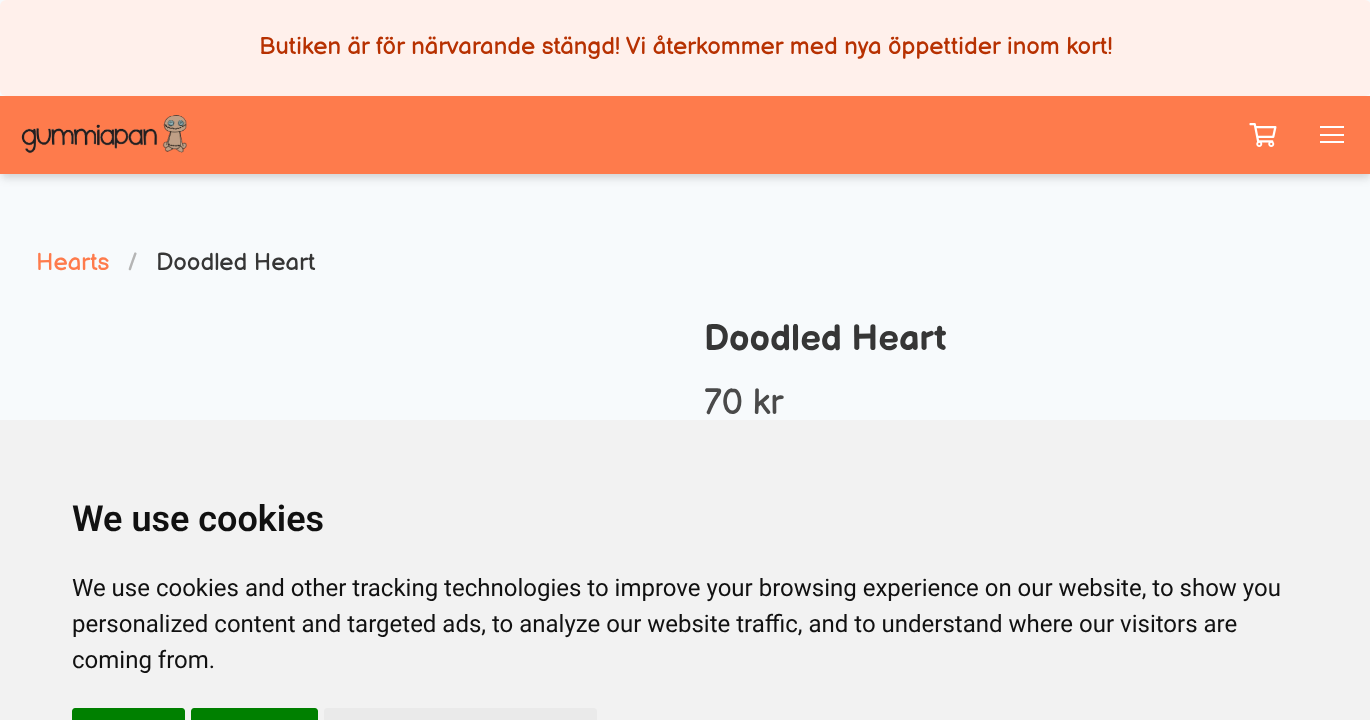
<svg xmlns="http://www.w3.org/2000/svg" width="1370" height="720">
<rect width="100%" height="100%" fill="#f7fafc"/>
<rect width="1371" height="96" rx="6" fill="#fff0eb"/>
<text x="259" y="54" style="font-family:Balsamiq Sans;font-size:24px;fill:#b73101">Butiken är för närvarande stängd! Vi återkommer med nya öppettider inom kort!</text>
<rect x="2" y="101" width="1368" height="75" fill="#0000000f" filter="blur(3px)"/>
<rect x="2" y="104" width="1368" height="75" fill="#0000001a" filter="blur(4.5px)"/>
<rect y="96" width="1370" height="78" fill="#fe7b4c"/>
<image x="21" y="115" width="166" height="39" href="media/1.png"/>
<image x="1249" y="123" width="28" height="24" href="media/2.png"/>
<rect x="1320" y="126" width="24" height="2" fill="#fff"/>
<rect x="1320" y="134" width="24" height="2" fill="#fff"/>
<rect x="1320" y="141" width="24" height="2" fill="#fff"/>
<text x="36" y="270" style="font-family:Balsamiq Sans;font-size:24px;fill:#fe7b4c">Hearts</text>
<text x="127" y="270" style="font-family:Balsamiq Sans;font-size:24px;fill:#b5b5b5">/</text>
<text x="156" y="270" style="font-family:Balsamiq Sans;font-size:24px;fill:#363636">Doodled Heart</text>
<text x="704" y="350" style="font-family:Balsamiq Sans;font-size:36px;font-weight:bold;fill:#363636">Doodled Heart</text>
<text x="704" y="414" style="font-family:Balsamiq Sans;font-size:36px;fill:#4a4a4a">70 kr</text>
<rect y="420" width="1370" height="300" fill="#f2f2f2"/>
<text x="72" y="531" style="font-family:Roboto;font-size:36px;font-weight:600;fill:#111">We use cookies</text>
<text x="72" y="596" style="font-family:Roboto;font-size:24px;fill:#111">We use cookies and other tracking technologies to improve your browsing experience on our website, to show you</text>
<text x="72" y="632" style="font-family:Roboto;font-size:24px;fill:#111">personalized content and targeted ads, to analyze our website traffic, and to understand where our visitors are</text>
<text x="72" y="668" style="font-family:Roboto;font-size:24px;fill:#111">coming from.</text>
<path d="M75 708h107c1.5 0 3 1.5 3 3v9h-113v-9c0-1.5 1.5-3 3-3z" fill="#008000"/>
<path d="M194 708h121c1.5 0 3 1.5 3 3v9h-127v-9c0-1.5 1.5-3 3-3z" fill="#008000"/>
<path d="M327 708h267c1.5 0 3 1.5 3 3v9h-273v-9c0-1.5 1.5-3 3-3z" fill="#eaeaea"/>
</svg>
